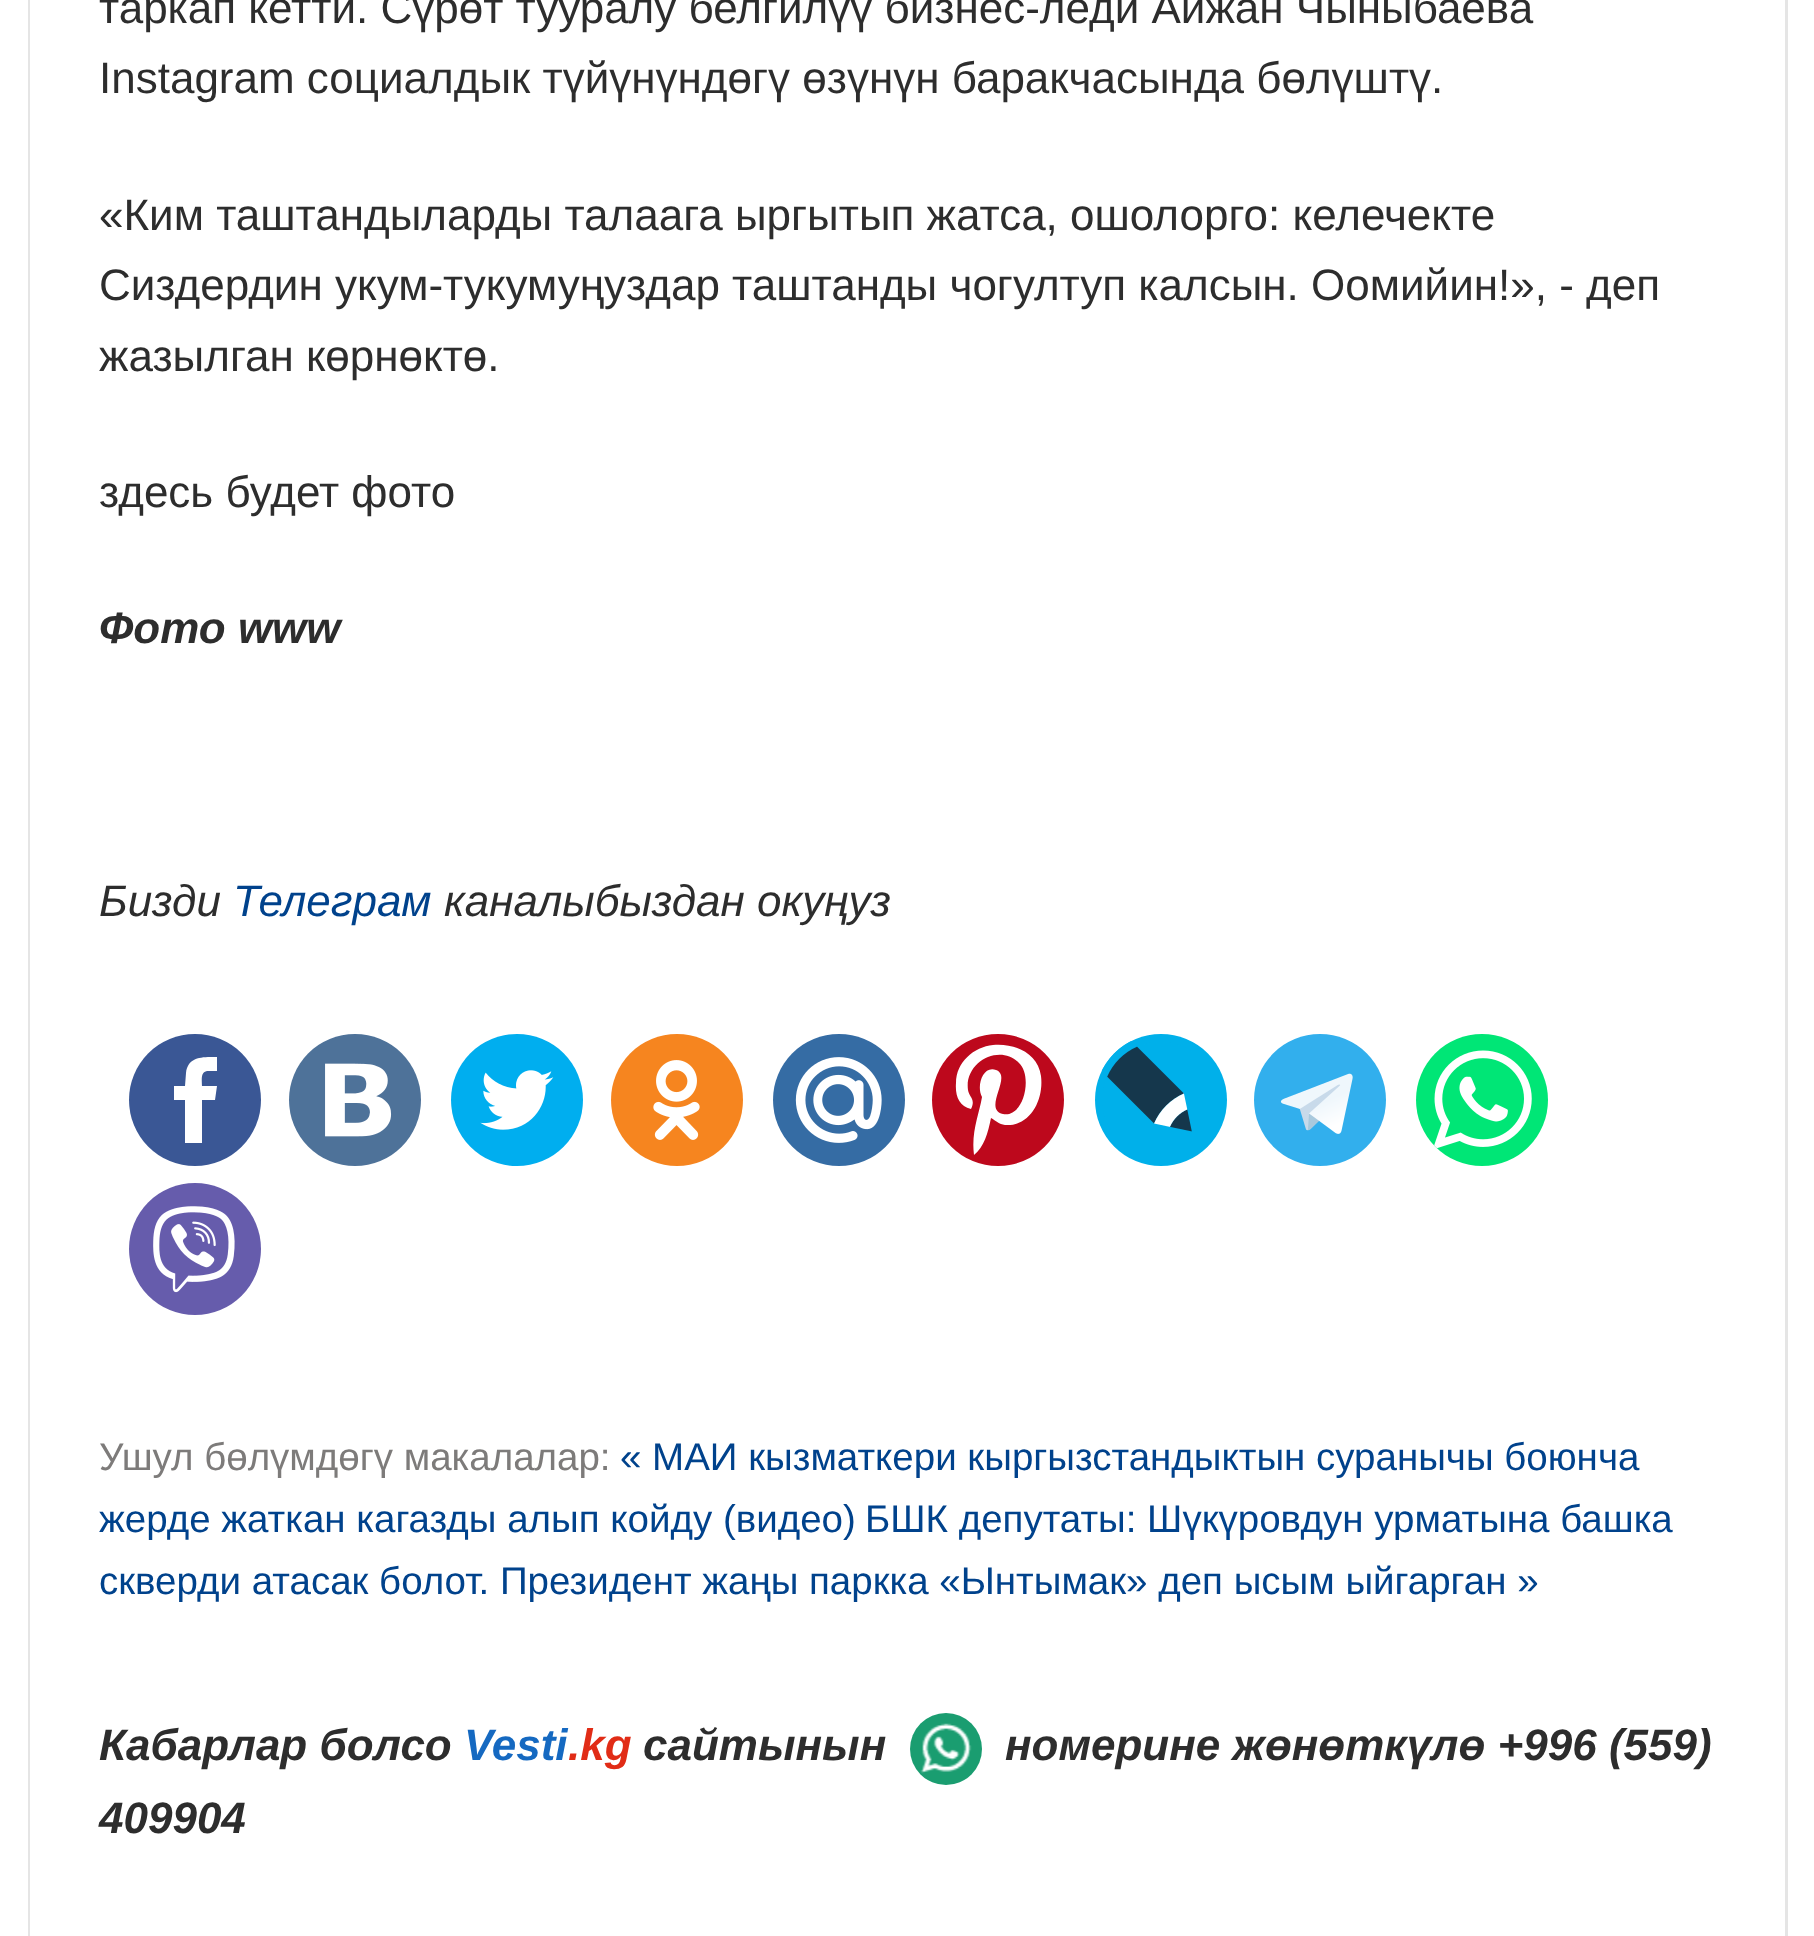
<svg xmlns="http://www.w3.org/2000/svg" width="1814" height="1936">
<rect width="100%" height="100%" fill="#fff"/>
<rect x="1785" width="3" height="1936" fill="#e5e5e5"/>
<rect x="28" width="2" height="1936" fill="#e5e5e5"/>
<text x="99" y="23" style="font-family:Liberation Sans;font-size:44px;fill:#2d2d2d">таркап кетти. Сүрөт тууралу белгилүү бизнес-леди Айжан Чыныбаева</text>
<text x="99" y="93" style="font-family:Liberation Sans;font-size:44px;fill:#2d2d2d">Instagram социалдык түйүнүндөгү өзүнүн баракчасында бөлүштү.</text>
<text x="99" y="230" style="font-family:Liberation Sans;font-size:44px;fill:#2d2d2d">«Ким таштандыларды талаага ыргытып жатса, ошолорго: келечекте</text>
<text x="99" y="300" style="font-family:Liberation Sans;font-size:44px;fill:#2d2d2d">Сиздердин укум-тукумуңуздар таштанды чогултуп калсын. Оомийин!», - деп</text>
<text x="99" y="371" style="font-family:Liberation Sans;font-size:44px;fill:#2d2d2d">жазылган көрнөктө.</text>
<text x="99" y="507" style="font-family:Liberation Sans;font-size:44px;fill:#2d2d2d">здесь будет фото</text>
<text x="99" y="643" style="font-family:Liberation Sans;font-size:44px;font-weight:bold;font-style:italic;fill:#2d2d2d">Фото www</text>
<text x="99" y="916" style="font-family:Liberation Sans;font-size:44px;font-style:italic;fill:#2d2d2d">Бизди</text>
<text x="233" y="916" style="font-family:Liberation Sans;font-size:44px;font-style:italic;fill:#00428c">Телеграм</text>
<text x="444" y="916" style="font-family:Liberation Sans;font-size:44px;font-style:italic;fill:#2d2d2d">каналыбыздан окуңуз</text>
<circle cx="195" cy="1100" r="66" fill="#3a5795"/>
<path d="M209 1071h8v-14c-14 0-29-1-31 16l-1 13h-11v14h11v43h17v-43h13l2-14h-15c0-7-2-15 7-15z" fill="#fff"/>
<circle cx="355" cy="1100" r="66" fill="#4e7299"/>
<image x="325" y="1063" width="67" height="74" href="media/1.png"/>
<circle cx="517" cy="1100" r="66" fill="#00aeef"/>
<image x="480" y="1070" width="74" height="60" href="media/2.png"/>
<circle cx="677" cy="1100" r="66" fill="#f6851f"/>
<image x="653" y="1060" width="47" height="80" href="media/3.png"/>
<circle cx="839" cy="1100" r="66" fill="#356ca4"/>
<image x="795" y="1057" width="87" height="86" href="media/4.png"/>
<circle cx="998" cy="1100" r="66" fill="#bd081c"/>
<path d="M991 1118c-3 15-7 29-17 37c-3-23 5-40 8-58c-6-11 1-32 14-27c17 6-14 39 7 44c21 4 30-38 16-51c-19-20-55-1-51 27c1 7 8 9 3 19c-12-3-16-13-15-26c0-21 18-36 37-38c23-2 45 9 48 31c3 24-11 51-36 49c-6-1-9-4-14-7z" fill="#fff"/>
<circle cx="1161" cy="1100" r="66" fill="#00b0ea"/>
<image x="1101" y="1041" width="91" height="91" href="media/5.png"/>
<circle cx="1320" cy="1100" r="66" fill="#32afed"/>
<image x="1280" y="1073" width="73" height="61" href="media/6.png"/>
<circle cx="1482" cy="1100" r="66" fill="#00e676"/>
<image x="1434" y="1050" width="98" height="99" href="media/7.png"/>
<circle cx="195" cy="1249" r="66" fill="#665cac"/>
<image x="153" y="1206" width="82" height="87" href="media/8.png"/>
<text x="99" y="1470" style="font-family:Liberation Sans;font-size:38.5px;fill:#7d7b7a">Ушул бөлүмдөгү макалалар:</text>
<text x="620" y="1470" style="font-family:Liberation Sans;font-size:38.5px;fill:#00428c">« МАИ кызматкери кыргызстандыктын суранычы боюнча</text>
<text x="99" y="1532" style="font-family:Liberation Sans;font-size:38.5px;fill:#00428c">жерде жаткан кагазды алып койду (видео)</text>
<text x="865" y="1532" style="font-family:Liberation Sans;font-size:38.5px;fill:#00428c">БШК депутаты: Шүкүровдун урматына башка</text>
<text x="99" y="1594" style="font-family:Liberation Sans;font-size:38.5px;fill:#00428c">скверди атасак болот. Президент жаңы паркка «Ынтымак» деп ысым ыйгарган »</text>
<text x="99" y="1760" style="font-family:Liberation Sans;font-size:44px;font-weight:bold;font-style:italic;fill:#2d2d2d">Кабарлар болсо</text>
<text x="464" y="1760" style="font-family:Liberation Sans;font-size:44px;font-weight:bold;font-style:italic;fill:#1569c1">Vesti</text>
<text x="568" y="1760" style="font-family:Liberation Sans;font-size:44px;font-weight:bold;font-style:italic;fill:#e12c16">.kg</text>
<text x="643" y="1760" style="font-family:Liberation Sans;font-size:44px;font-weight:bold;font-style:italic;fill:#2d2d2d">сайтынын</text>
<circle cx="946" cy="1749" r="36" fill="#1a9d70"/>
<image x="920" y="1723" width="52" height="51" href="media/9.png"/>
<text x="1005" y="1760" style="font-family:Liberation Sans;font-size:44px;font-weight:bold;font-style:italic;fill:#2d2d2d">номерине жөнөткүлө +996 (559)</text>
<text x="99" y="1833" style="font-family:Liberation Sans;font-size:44px;font-weight:bold;font-style:italic;fill:#2d2d2d">409904</text>
</svg>
